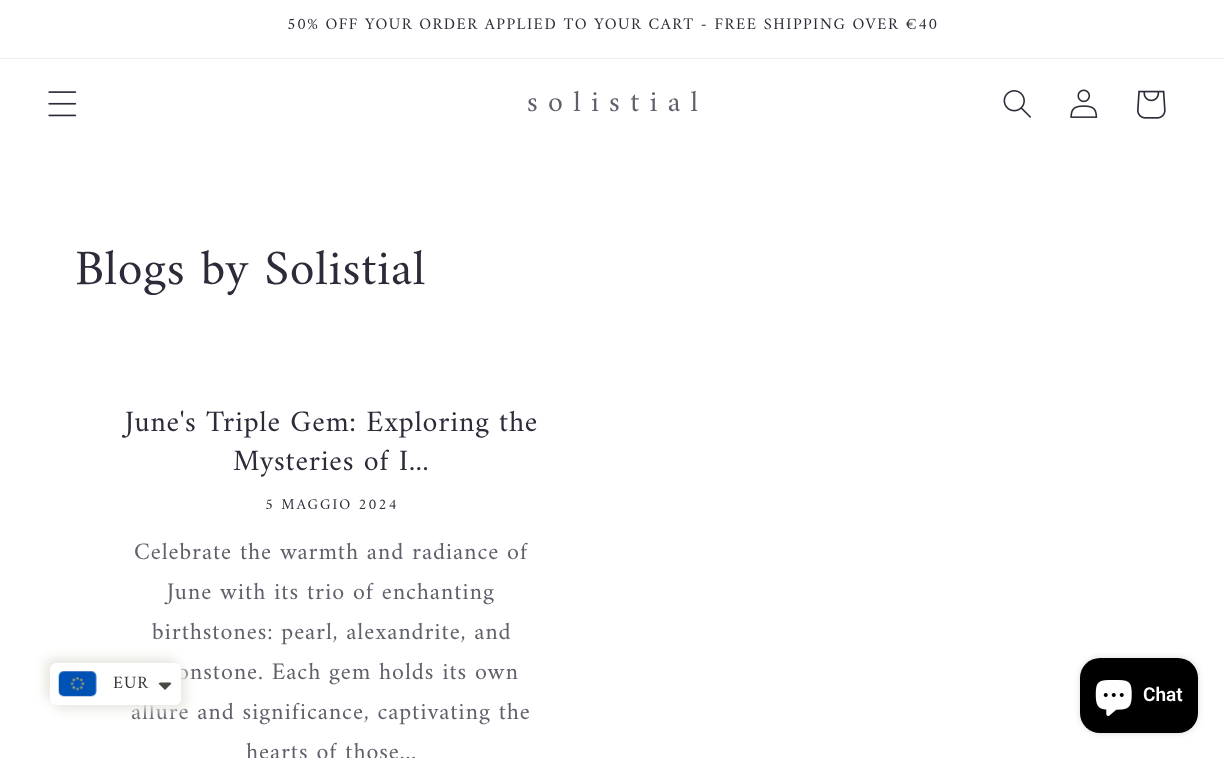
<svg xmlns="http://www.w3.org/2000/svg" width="1224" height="758">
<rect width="100%" height="100%" fill="#fff"/>
<rect y="58" width="1224" height="1" fill="#eeeeef"/>
<text x="287" y="29" style="font-family:Amiri;font-size:16.25px;letter-spacing:1.5px;fill:#2e2a39">50% OFF YOUR ORDER APPLIED TO YOUR CART - FREE SHIPPING OVER €40</text>
<image x="48" y="91" width="29" height="26" href="media/1.png"/>
<text x="527" y="111" style="font-family:Amiri;font-size:30px;letter-spacing:0.75px;fill:#625f6b">s o l i s t i a l</text>
<image x="1003" y="90" width="28" height="28" href="media/2.png"/>
<image x="1070" y="89" width="28" height="29" href="media/3.png"/>
<image x="1137" y="90" width="29" height="29" href="media/4.png"/>
<text x="75" y="284" style="font-family:Amiri;font-size:50px;letter-spacing:0.75px;fill:#2e2a39">Blogs by Solistial</text>
<text x="125" y="431" style="font-family:Amiri;font-size:30px;letter-spacing:0.75px;fill:#2e2a39">June's Triple Gem: Exploring the</text>
<text x="233" y="470" style="font-family:Amiri;font-size:30px;letter-spacing:0.75px;fill:#2e2a39">Mysteries of I...</text>
<text x="265" y="509" style="font-family:Amiri;font-size:15px;letter-spacing:2px;fill:#2e2a39">5 MAGGIO 2024</text>
<text x="134" y="559" style="font-family:Amiri;font-size:24px;letter-spacing:0.9px;fill:#625f6b">Celebrate the warmth and radiance of</text>
<text x="167" y="599" style="font-family:Amiri;font-size:24px;letter-spacing:0.9px;fill:#625f6b">June with its trio of enchanting</text>
<text x="152" y="639" style="font-family:Amiri;font-size:24px;letter-spacing:0.9px;fill:#625f6b">birthstones: pearl, alexandrite, and</text>
<text x="177" y="679" style="font-family:Amiri;font-size:24px;letter-spacing:0.9px;fill:#625f6b">onstone. Each gem holds its own</text>
<text x="131" y="719" style="font-family:Amiri;font-size:24px;letter-spacing:0.9px;fill:#625f6b">allure and significance, captivating the</text>
<text x="246" y="759" style="font-family:Amiri;font-size:24px;letter-spacing:0.9px;fill:#625f6b">hearts of those...</text>
<rect x="45" y="658" width="131" height="42" rx="6" fill="#e8e8e2" filter="blur(5.5px)"/>
<rect x="55" y="668" width="131" height="42" rx="6" fill="#e8e8e2" filter="blur(5.5px)"/>
<rect x="50" y="663" width="131" height="42" rx="6" fill="#fff"/>
<image x="58" y="671" width="39" height="26" href="media/5.png"/>
<text x="113" y="688" style="font-family:Amiri;font-size:17.5px;letter-spacing:0.9px;fill:#333">EUR</text>
<path d="M161 682.5c-1 0-2 .5-2.5 1l6.5 6.5l6.5-6.5c-.5-.5-1.5-1-2.5-1z" fill="#474942"/>
<rect x="1080" y="658" width="118" height="75" rx="20" fill="#00000026" filter="blur(3px)"/>
<rect x="1080" y="658" width="118" height="75" rx="20" fill="#000"/>
<image x="1095" y="680" width="37" height="36" href="media/6.png"/>
<text x="1143" y="701" style="font-family:Roboto;font-size:19px;font-weight:600;fill:#fff">Chat</text>
</svg>
